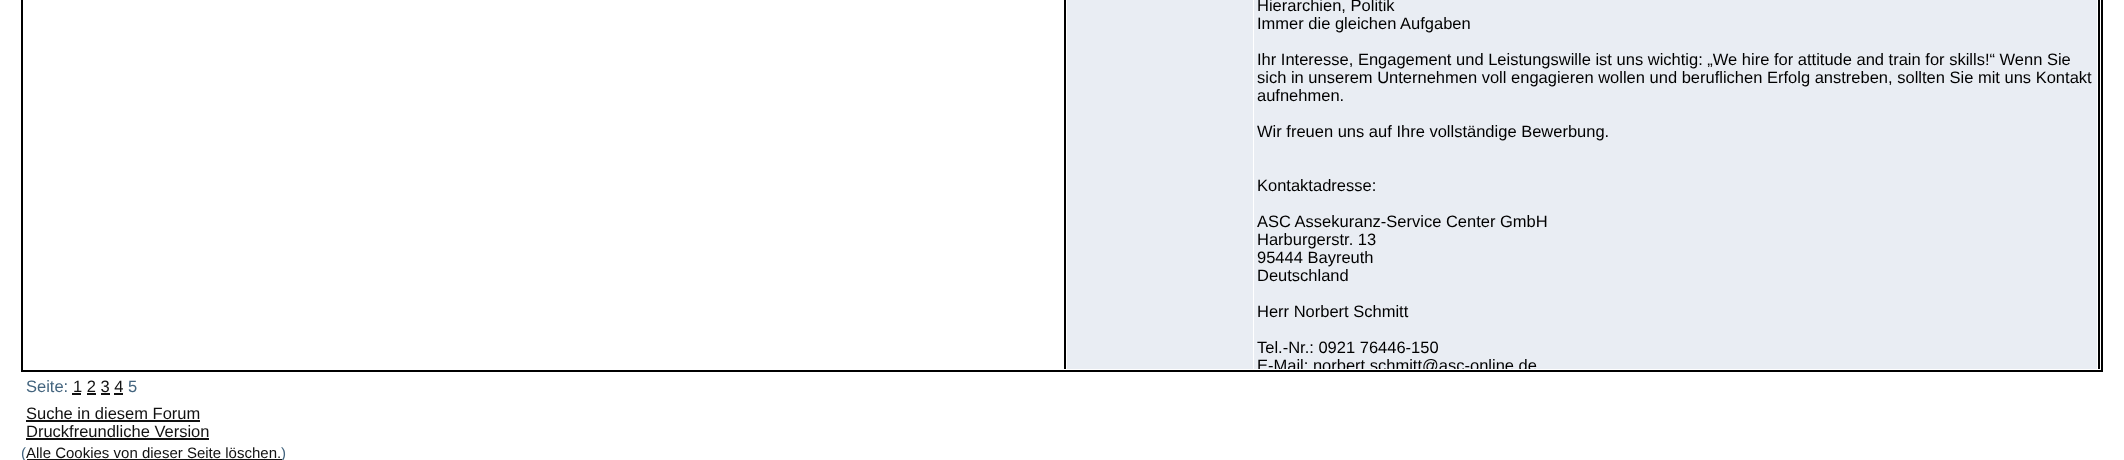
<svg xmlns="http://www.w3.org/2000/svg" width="2124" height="460">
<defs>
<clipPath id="clip1"><rect x="1064" width="1036" height="369"/></clipPath>
</defs>
<rect width="100%" height="100%" fill="#fff"/>
<rect x="22" y="-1" width="2080" height="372" fill="none" stroke="#000" stroke-width="2"/>
<g clip-path="url(#clip1)">
<rect x="1065" y="-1" width="1034" height="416" fill="none" stroke="#000" stroke-width="2"/>
</g>
<rect x="1067" width="186" height="369" fill="#e9edf3"/>
<rect x="1254" width="843" height="369" fill="#e9edf3"/>
<text x="1257" y="11" style="font-family:Liberation Sans;font-size:16.5px;fill:#000">Hierarchien, Politik</text>
<text x="1257" y="29" style="font-family:Liberation Sans;font-size:16.5px;fill:#000">Immer die gleichen Aufgaben</text>
<text x="1257" y="65" style="font-family:Liberation Sans;font-size:16.5px;fill:#000">Ihr Interesse, Engagement und Leistungswille ist uns wichtig: „We hire for attitude and train for skills!“ Wenn Sie</text>
<text x="1257" y="83" style="font-family:Liberation Sans;font-size:16.5px;fill:#000">sich in unserem Unternehmen voll engagieren wollen und beruflichen Erfolg anstreben, sollten Sie mit uns Kontakt</text>
<text x="1257" y="101" style="font-family:Liberation Sans;font-size:16.5px;fill:#000">aufnehmen.</text>
<text x="1257" y="137" style="font-family:Liberation Sans;font-size:16.5px;fill:#000">Wir freuen uns auf Ihre vollständige Bewerbung.</text>
<text x="1257" y="191" style="font-family:Liberation Sans;font-size:16.5px;fill:#000">Kontaktadresse:</text>
<text x="1257" y="227" style="font-family:Liberation Sans;font-size:16.5px;fill:#000">ASC Assekuranz-Service Center GmbH</text>
<text x="1257" y="245" style="font-family:Liberation Sans;font-size:16.5px;fill:#000">Harburgerstr. 13</text>
<text x="1257" y="263" style="font-family:Liberation Sans;font-size:16.5px;fill:#000">95444 Bayreuth</text>
<text x="1257" y="281" style="font-family:Liberation Sans;font-size:16.5px;fill:#000">Deutschland</text>
<text x="1257" y="317" style="font-family:Liberation Sans;font-size:16.5px;fill:#000">Herr Norbert Schmitt</text>
<text x="1257" y="353" style="font-family:Liberation Sans;font-size:16.5px;fill:#000">Tel.-Nr.: 0921 76446-150</text>
<g clip-path="url(#clip1)">
<text x="1257" y="371" style="font-family:Liberation Sans;font-size:16.5px;fill:#000">E-Mail: norbert.schmitt@asc-online.de</text>
</g>
<text x="26" y="392" style="font-family:Liberation Sans;font-size:16.5px;fill:#43647e">Seite:</text>
<text x="73" y="392" style="font-family:Liberation Sans;font-size:16.5px;fill:#111">1 2 3 4</text>
<rect x="72" y="393" width="9" height="2" fill="#111"/>
<text x="128" y="392" style="font-family:Liberation Sans;font-size:16.5px;fill:#43647e">5</text>
<rect x="87" y="393" width="9" height="2" fill="#111"/>
<rect x="101" y="393" width="9" height="2" fill="#111"/>
<rect x="114" y="393" width="9" height="2" fill="#111"/>
<text x="26" y="419" style="font-family:Liberation Sans;font-size:16.5px;fill:#111">Suche in diesem Forum</text>
<rect x="26" y="420" width="174" height="2" fill="#111"/>
<text x="26" y="437" style="font-family:Liberation Sans;font-size:16.5px;fill:#111">Druckfreundliche Version</text>
<rect x="26" y="438" width="183" height="2" fill="#111"/>
<text x="21" y="458" style="font-family:Liberation Sans;font-size:15px;fill:#43647e">(</text>
<text x="26" y="458" style="font-family:Liberation Sans;font-size:15px;fill:#111">Alle Cookies von dieser Seite löschen.</text>
<rect x="27" y="459" width="255" height="1" fill="#111"/>
<text x="281" y="458" style="font-family:Liberation Sans;font-size:15px;fill:#43647e">)</text>
</svg>
